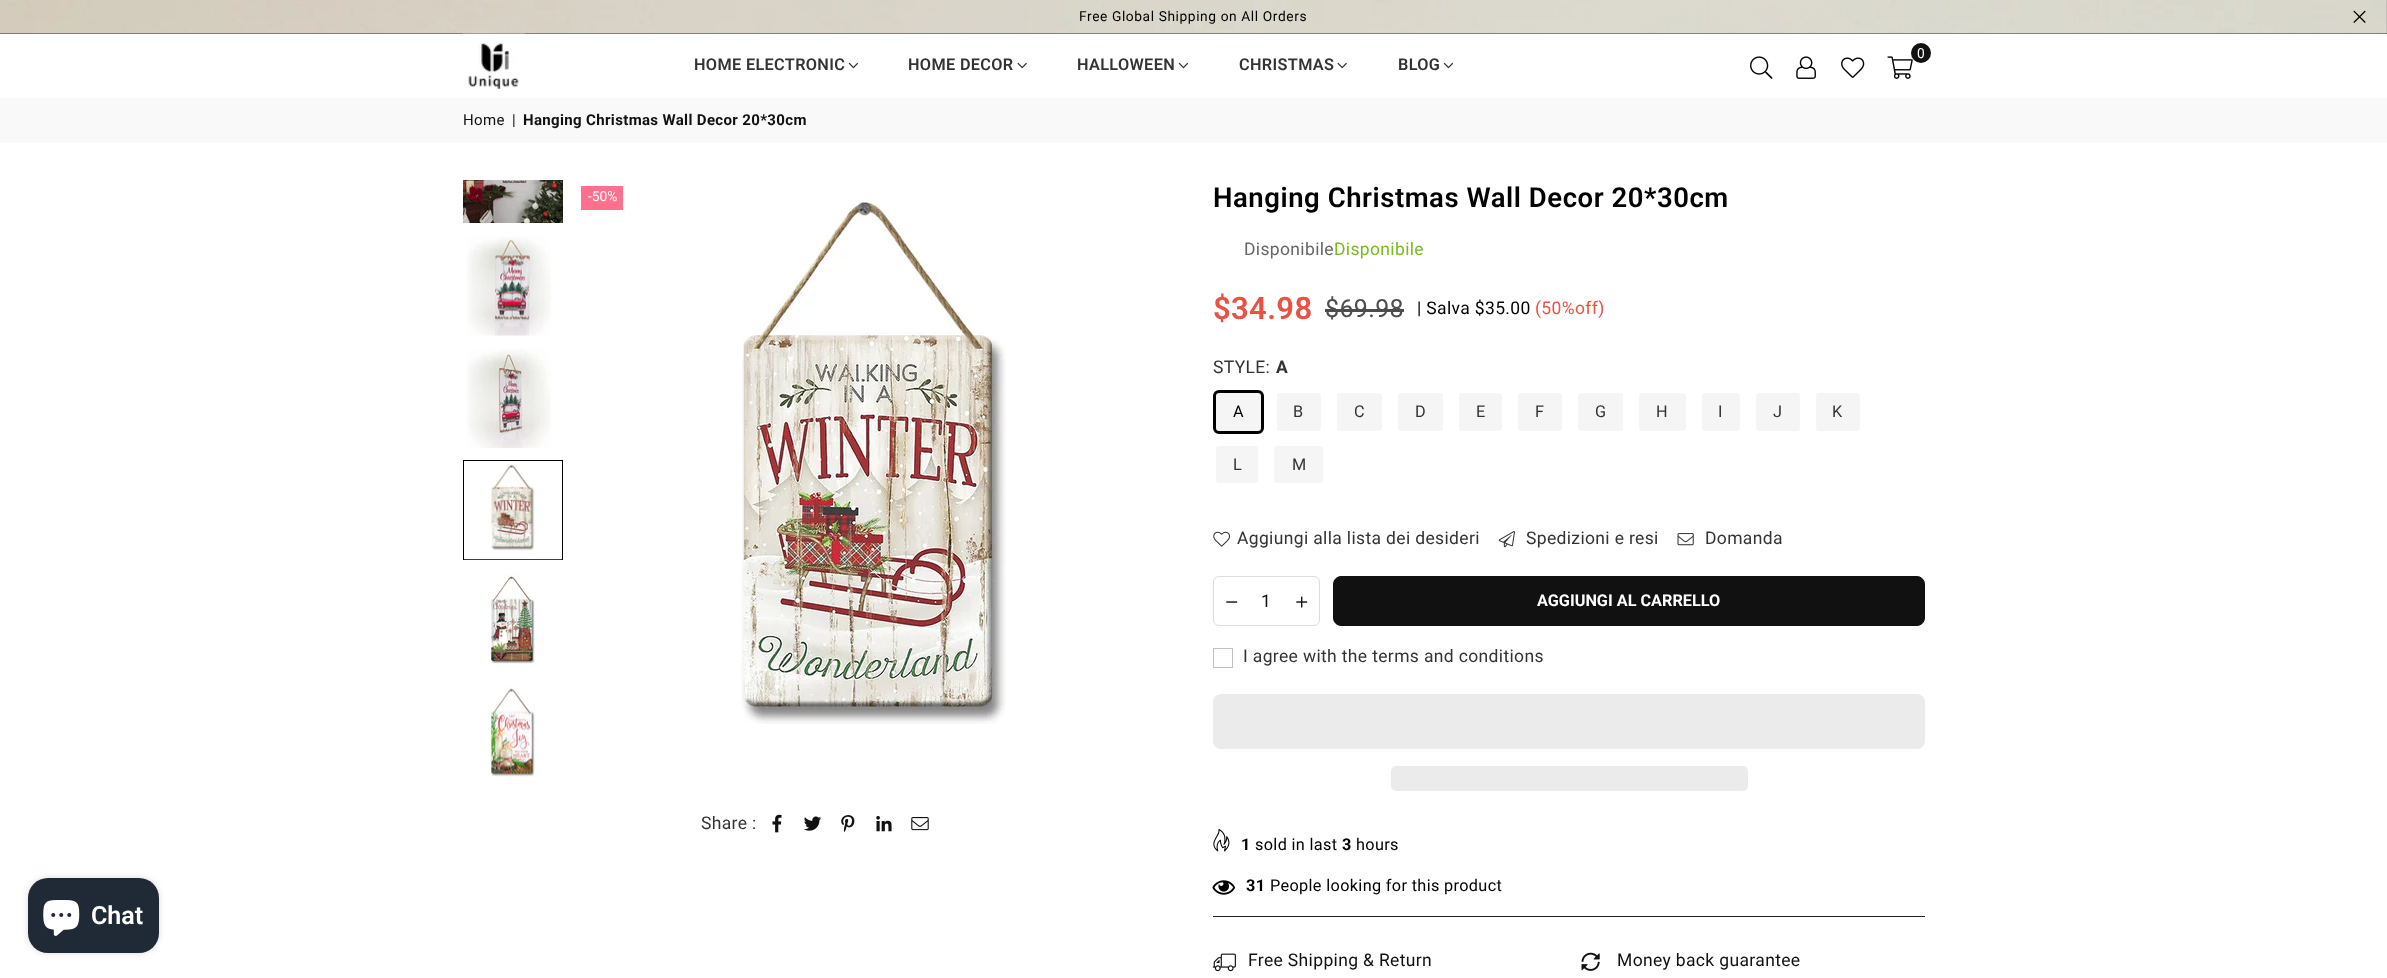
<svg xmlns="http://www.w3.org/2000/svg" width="2387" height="978">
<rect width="100%" height="100%" fill="#fff"/>
<rect width="2387" height="34" fill="#111"/>
<image x="0" y="0" width="2387" height="34" href="media/1.png"/>
<text x="1079" y="21" style="font-family:Roboto;font-size:13.75px;letter-spacing:0.6px;fill:#000">Free Global Shipping on All Orders</text>
<image x="2353" y="10" width="13" height="13" href="media/2.png"/>
<image x="462" y="33" width="63" height="56" href="media/3.png"/>
<image x="1887" y="56" width="26" height="23" href="media/4.png"/>
<circle cx="1921" cy="53" r="10" fill="#111"/>
<text x="1917" y="58" style="font-family:Roboto;font-size:13.75px;letter-spacing:0.35px;fill:#fff">0</text>
<image x="1750" y="56" width="23" height="23" href="media/5.png"/>
<image x="1796" y="56" width="20" height="23" href="media/6.png"/>
<image x="1841" y="57" width="24" height="21" href="media/7.png"/>
<text x="694" y="70" style="font-family:Roboto;font-size:16.25px;font-weight:600;letter-spacing:0.35px;fill:#333">HOME ELECTRONIC</text>
<image x="848" y="62" width="11" height="7" href="media/8.png"/>
<text x="908" y="70" style="font-family:Roboto;font-size:16.25px;font-weight:600;letter-spacing:0.35px;fill:#333">HOME DECOR</text>
<image x="1017" y="62" width="10" height="7" href="media/9.png"/>
<text x="1077" y="70" style="font-family:Roboto;font-size:16.25px;font-weight:600;letter-spacing:0.35px;fill:#333">HALLOWEEN</text>
<image x="1178" y="62" width="11" height="7" href="media/8.png"/>
<text x="1239" y="70" style="font-family:Roboto;font-size:16.25px;font-weight:600;letter-spacing:0.35px;fill:#333">CHRISTMAS</text>
<image x="1337" y="62" width="10" height="7" href="media/9.png"/>
<text x="1398" y="70" style="font-family:Roboto;font-size:16.25px;font-weight:600;letter-spacing:0.35px;fill:#333">BLOG</text>
<image x="1443" y="62" width="11" height="7" href="media/8.png"/>
<rect x="28" y="878" width="131" height="75" rx="20" fill="#00000026" filter="blur(3px)"/>
<rect x="28" y="878" width="131" height="75" rx="20" fill="#202a36"/>
<image x="43" y="900" width="37" height="36" href="media/10.png"/>
<text x="91" y="924" style="font-family:Roboto;font-size:25px;font-weight:600;fill:#fff">Chat</text>
<rect y="98" width="2387" height="45" fill="#f9f9f9"/>
<text x="463" y="125" style="font-family:Roboto;font-size:15px;letter-spacing:0.35px;fill:#111">Home</text>
<text x="512" y="125" style="font-family:Roboto;font-size:15px;letter-spacing:0.35px;fill:#111">|</text>
<text x="523" y="125" style="font-family:Roboto;font-size:15px;font-weight:bold;letter-spacing:0.35px;fill:#111">Hanging Christmas Wall Decor 20*30cm</text>
<image x="463" y="180" width="100" height="43" href="media/11.png"/>
<image x="467" y="236" width="84" height="100" href="media/12.png"/>
<image x="467" y="349" width="84" height="99" href="media/13.png"/>
<rect x="463.5" y="460.5" width="99" height="99" fill="none" stroke="#000"/>
<image x="464" y="462" width="98" height="98" href="media/14.png"/>
<image x="490" y="573" width="45" height="91" href="media/15.png"/>
<image x="490" y="687" width="45" height="90" href="media/16.png"/>
<rect x="581" y="186" width="42" height="24" fill="#ff708e"/>
<text x="588" y="201" style="font-family:Roboto;font-size:13.75px;fill:#fff">-50%</text>
<image x="741" y="200" width="265" height="524" href="media/17.png"/>
<text x="701" y="829" style="font-family:Roboto;font-size:17.5px;letter-spacing:0.35px;fill:#333">Share :</text>
<image x="772" y="814" width="10" height="19" href="media/18.png"/>
<image x="804" y="816" width="18" height="15" href="media/19.png"/>
<image x="841" y="815" width="14" height="18" href="media/20.png"/>
<image x="876" y="816" width="16" height="16" href="media/21.png"/>
<image x="911" y="817" width="18" height="14" href="media/22.png"/>
<text x="1213" y="207" style="font-family:Roboto;font-size:27.5px;font-weight:600;letter-spacing:0.55px;fill:#000">Hanging Christmas Wall Decor 20*30cm</text>
<text x="1244" y="255" style="font-family:Roboto;font-size:17.5px;letter-spacing:0.35px;fill:#666">Disponibile</text>
<text x="1334" y="255" style="font-family:Roboto;font-size:17.5px;letter-spacing:0.35px;fill:#76bd1c">Disponibile</text>
<text x="1213" y="319" style="font-family:Roboto;font-size:31px;font-weight:600;letter-spacing:0.35px;fill:#e95144">$34.98</text>
<text x="1325" y="317" style="font-family:Roboto;font-size:25px;letter-spacing:0.35px;fill:#4d4d4d">$69.98</text>
<rect x="1325" y="309" width="79" height="3" fill="#4d4d4d"/>
<text x="1417" y="314" style="font-family:Roboto;font-size:17.5px;letter-spacing:0.35px;fill:#000">| Salva $35.00</text>
<text x="1535" y="314" style="font-family:Roboto;font-size:17.5px;letter-spacing:0.35px;fill:#e95144">(50%off)</text>
<text x="1213" y="373" style="font-family:Roboto;font-size:17.5px;letter-spacing:0.35px;fill:#333">STYLE:</text>
<text x="1276" y="373" style="font-family:Roboto;font-size:17.5px;font-weight:bold;letter-spacing:0.35px;fill:#333">A</text>
<rect x="1214.5" y="391.5" width="48" height="41" rx="4.5" fill="#f5f5f5" stroke="#000" stroke-width="3"/>
<text x="1233" y="417" style="font-family:Roboto;font-size:16.25px;letter-spacing:0.35px;fill:#000">A</text>
<rect x="1275.5" y="391.5" width="47" height="41" rx="4.5" fill="#f5f5f5" stroke="#fff" stroke-width="3"/>
<text x="1293" y="417" style="font-family:Roboto;font-size:16.25px;letter-spacing:0.35px;fill:#333">B</text>
<rect x="1335.5" y="391.5" width="48" height="41" rx="4.5" fill="#f5f5f5" stroke="#fff" stroke-width="3"/>
<text x="1354" y="417" style="font-family:Roboto;font-size:16.25px;letter-spacing:0.35px;fill:#333">C</text>
<rect x="1396.5" y="391.5" width="48" height="41" rx="4.5" fill="#f5f5f5" stroke="#fff" stroke-width="3"/>
<text x="1415" y="417" style="font-family:Roboto;font-size:16.25px;letter-spacing:0.35px;fill:#333">D</text>
<rect x="1457.5" y="391.5" width="46" height="41" rx="4.5" fill="#f5f5f5" stroke="#fff" stroke-width="3"/>
<text x="1476" y="417" style="font-family:Roboto;font-size:16.25px;letter-spacing:0.35px;fill:#333">E</text>
<rect x="1516.5" y="391.5" width="47" height="41" rx="4.5" fill="#f5f5f5" stroke="#fff" stroke-width="3"/>
<text x="1535" y="417" style="font-family:Roboto;font-size:16.25px;letter-spacing:0.35px;fill:#333">F</text>
<rect x="1576.5" y="391.5" width="48" height="41" rx="4.5" fill="#f5f5f5" stroke="#fff" stroke-width="3"/>
<text x="1595" y="417" style="font-family:Roboto;font-size:16.25px;letter-spacing:0.35px;fill:#333">G</text>
<rect x="1637.5" y="391.5" width="50" height="41" rx="4.5" fill="#f5f5f5" stroke="#fff" stroke-width="3"/>
<text x="1656" y="417" style="font-family:Roboto;font-size:16.25px;letter-spacing:0.35px;fill:#333">H</text>
<rect x="1700.5" y="391.5" width="41" height="41" rx="4.5" fill="#f5f5f5" stroke="#fff" stroke-width="3"/>
<text x="1718" y="417" style="font-family:Roboto;font-size:16.25px;letter-spacing:0.35px;fill:#333">I</text>
<rect x="1754.5" y="391.5" width="47" height="41" rx="4.5" fill="#f5f5f5" stroke="#fff" stroke-width="3"/>
<text x="1773" y="417" style="font-family:Roboto;font-size:16.25px;letter-spacing:0.35px;fill:#333">J</text>
<rect x="1814.5" y="391.5" width="47" height="41" rx="4.5" fill="#f5f5f5" stroke="#fff" stroke-width="3"/>
<text x="1832" y="417" style="font-family:Roboto;font-size:16.25px;letter-spacing:0.35px;fill:#333">K</text>
<rect x="1214.5" y="444.5" width="45" height="40" rx="4.5" fill="#f5f5f5" stroke="#fff" stroke-width="3"/>
<text x="1233" y="470" style="font-family:Roboto;font-size:16.25px;letter-spacing:0.35px;fill:#333">L</text>
<rect x="1272.5" y="444.5" width="52" height="40" rx="4.5" fill="#f5f5f5" stroke="#fff" stroke-width="3"/>
<text x="1292" y="470" style="font-family:Roboto;font-size:16.25px;letter-spacing:0.35px;fill:#333">M</text>
<image x="1213" y="531" width="17" height="16" href="media/23.png"/>
<text x="1237" y="544" style="font-family:Roboto;font-size:17.5px;letter-spacing:0.35px;fill:#333">Aggiungi alla lista dei desideri</text>
<image x="1498" y="531" width="17" height="17" href="media/24.png"/>
<text x="1526" y="544" style="font-family:Roboto;font-size:17.5px;letter-spacing:0.35px;fill:#333">Spedizioni e resi</text>
<image x="1677" y="533" width="17" height="13" href="media/25.png"/>
<text x="1705" y="544" style="font-family:Roboto;font-size:17.5px;letter-spacing:0.35px;fill:#333">Domanda</text>
<rect x="1213.5" y="576.5" width="106" height="49" rx="5.5" fill="none" stroke="#ddd"/>
<image x="1226" y="601" width="12" height="2" href="media/26.png"/>
<text x="1261" y="607" style="font-family:Roboto;font-size:17.5px;fill:#111">1</text>
<image x="1296" y="596" width="12" height="12" href="media/27.png"/>
<rect x="1333.5" y="576.5" width="591" height="49" rx="7.5" fill="#111" stroke="#111"/>
<text x="1537" y="606" style="font-family:Roboto;font-size:16.25px;font-weight:bold;fill:#fff">AGGIUNGI AL CARRELLO</text>
<rect x="1213.5" y="648.5" width="19" height="19" fill="none" stroke="#c2c2c2"/>
<text x="1243" y="662" style="font-family:Roboto;font-size:17.5px;letter-spacing:0.35px;fill:#333">I agree with the terms and conditions</text>
<rect x="1213" y="694" width="712" height="55" rx="8" fill="#ebebeb"/>
<rect x="1391" y="766" width="357" height="25" rx="5" fill="#ebebeb"/>
<image x="1213" y="829" width="17" height="23" href="media/28.png"/>
<text x="1241" y="850" style="font-family:Roboto;font-size:16.25px;font-weight:bold;letter-spacing:0.35px;fill:#000">1</text>
<text x="1255" y="850" style="font-family:Roboto;font-size:16.25px;letter-spacing:0.35px;fill:#000">sold in last</text>
<text x="1342" y="850" style="font-family:Roboto;font-size:16.25px;font-weight:bold;letter-spacing:0.35px;fill:#000">3</text>
<text x="1356" y="850" style="font-family:Roboto;font-size:16.25px;letter-spacing:0.35px;fill:#000">hours</text>
<image x="1212" y="880" width="23" height="15" href="media/29.png"/>
<text x="1246" y="891" style="font-family:Roboto;font-size:16.25px;font-weight:bold;letter-spacing:0.35px;fill:#000">31</text>
<text x="1270" y="891" style="font-family:Roboto;font-size:16.25px;letter-spacing:0.35px;fill:#000">People looking for this product</text>
<rect x="1213" y="916" width="712" height="1" fill="#222"/>
<image x="1212" y="953" width="24" height="19" href="media/30.png"/>
<text x="1248" y="966" style="font-family:Roboto;font-size:17.5px;letter-spacing:0.35px;fill:#111">Free Shipping &amp; Return</text>
<image x="1581" y="952" width="19" height="19" href="media/31.png"/>
<text x="1617" y="966" style="font-family:Roboto;font-size:17.5px;letter-spacing:0.35px;fill:#111">Money back guarantee</text>
</svg>
